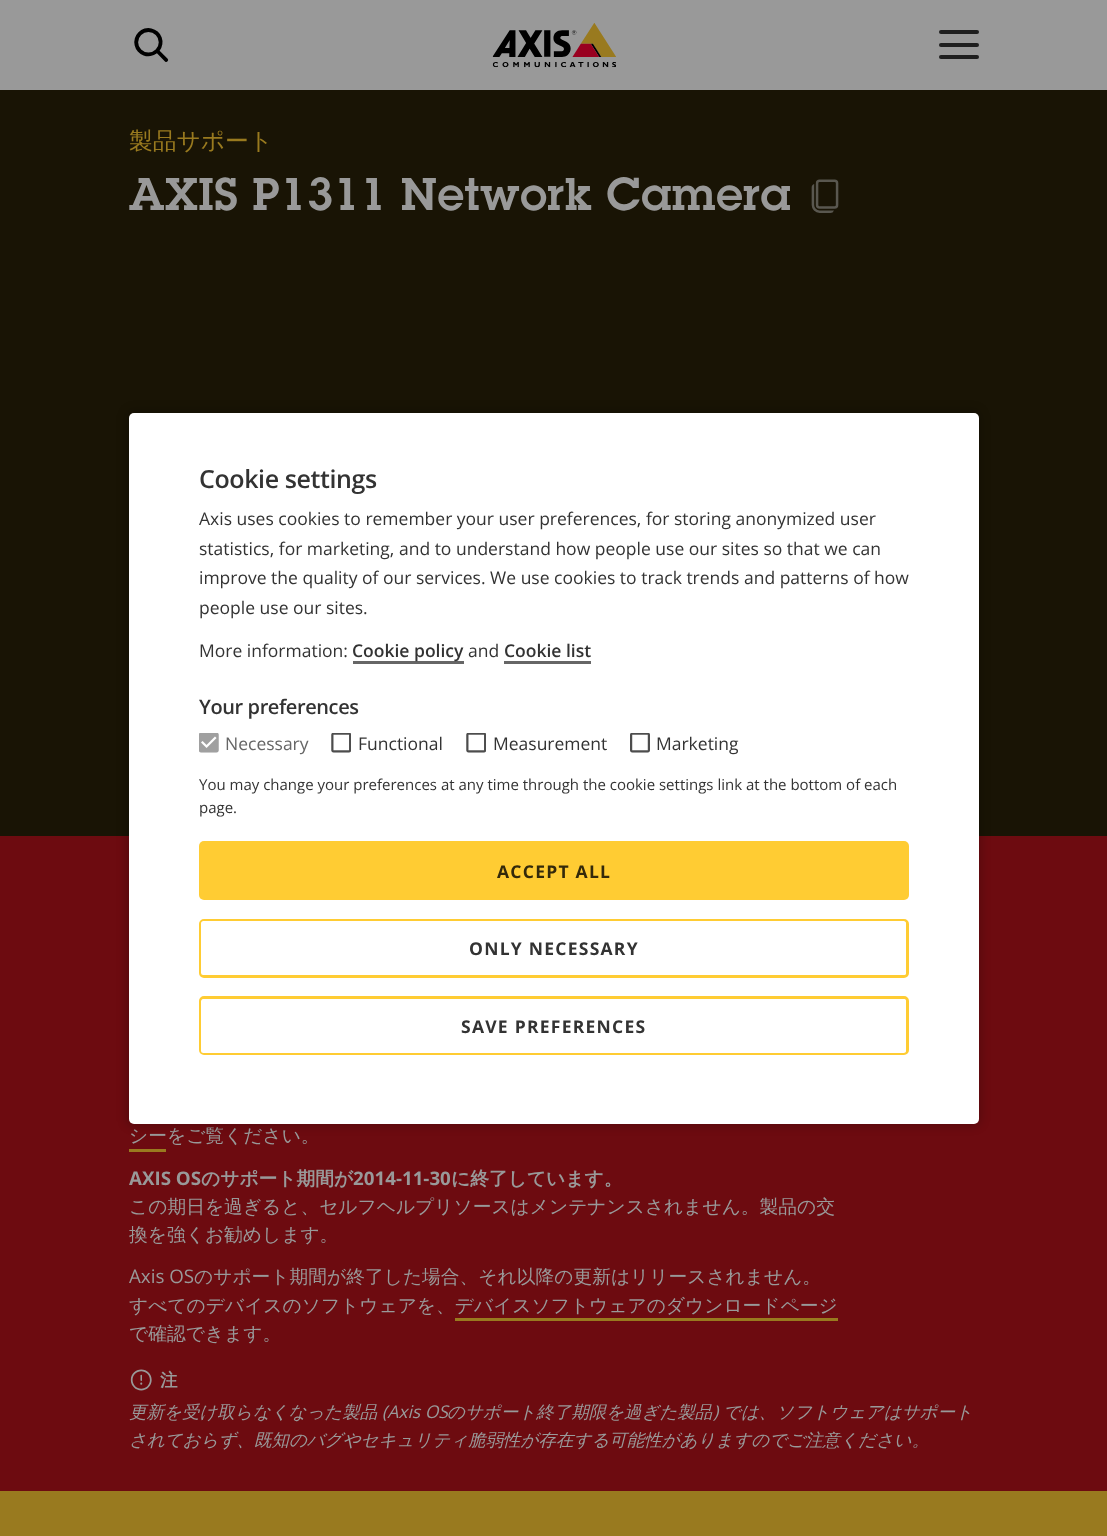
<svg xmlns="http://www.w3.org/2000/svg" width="1107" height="1536">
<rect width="100%" height="100%" fill="#191405"/>
<rect width="1107" height="90" fill="#999"/>
<image x="134" y="28" width="35" height="34" href="media/1.png"/>
<image x="492" y="23" width="124" height="45" href="media/2.png"/>
<rect x="939" y="43" width="40" height="4" rx="2" fill="#1f1f1f"/>
<rect x="939" y="30" width="40" height="4" rx="2" fill="#1f1f1f"/>
<rect x="939" y="55" width="40" height="4" rx="2" fill="#1f1f1f"/>
<text x="129" y="149" style="font-family:WenQuanYi Zen Hei;font-size:23.75px;font-weight:500;fill:#997a1f">製品サポート</text>
<text x="129" y="210" style="font-family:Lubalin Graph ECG;font-size:45px;font-weight:600;letter-spacing:0.6px;fill:#999">AXIS P1311 Network Camera</text>
<image x="811" y="179" width="28" height="34" href="media/3.png"/>
<rect y="836" width="1107" height="655" fill="#6d0b10"/>
<text x="129" y="1142" style="font-family:WenQuanYi Zen Hei;font-size:18.75px;font-weight:500;fill:#999">シーをご覧ください。</text>
<rect x="129" y="1149" width="37" height="3" fill="#997a1f"/>
<text x="129" y="1185" style="font-family:Open Sans;font-size:18.75px;font-weight:bold;fill:#999">AXIS OS</text>
<text x="201" y="1185" style="font-family:WenQuanYi Zen Hei;font-size:18.75px;font-weight:bold;fill:#999">のサポート期間が</text>
<text x="353" y="1185" style="font-family:Open Sans;font-size:18.75px;font-weight:bold;fill:#999">2014-11-30</text>
<text x="451" y="1185" style="font-family:WenQuanYi Zen Hei;font-size:18.75px;font-weight:bold;fill:#999">に終了しています。</text>
<text x="129" y="1213" style="font-family:WenQuanYi Zen Hei;font-size:18.75px;font-weight:500;fill:#999">この期日を過ぎると、セルフヘルプリソースはメンテナンスされません。製品の交</text>
<text x="129" y="1241" style="font-family:WenQuanYi Zen Hei;font-size:18.75px;font-weight:500;fill:#999">換を強くお勧めします。</text>
<text x="129" y="1283" style="font-family:Open Sans;font-size:18.75px;fill:#999">Axis OS</text>
<text x="194" y="1283" style="font-family:WenQuanYi Zen Hei;font-size:18.75px;font-weight:500;fill:#999">のサポート期間が終了した場合、それ以降の更新はリリースされません。</text>
<text x="129" y="1312" style="font-family:WenQuanYi Zen Hei;font-size:18.75px;font-weight:500;fill:#999">すべてのデバイスのソフトウェアを、デバイスソフトウェアのダウンロードページ</text>
<rect x="455" y="1318" width="383" height="3" fill="#997a1f"/>
<text x="129" y="1340" style="font-family:WenQuanYi Zen Hei;font-size:18.75px;font-weight:500;fill:#999">で確認できます。</text>
<image x="130" y="1369" width="22" height="22" href="media/4.png"/>
<text x="160" y="1386" style="font-family:WenQuanYi Zen Hei;font-size:17.5px;font-weight:bold;letter-spacing:1.25px;fill:#999">注</text>
<text x="129" y="1418" style="font-family:WenQuanYi Zen Hei;font-size:17.5px;font-weight:500;font-style:italic;fill:#999">更新を受け取らなくなった製品</text>
<text x="382" y="1418" style="font-family:Open Sans;font-size:17.5px;font-style:italic;fill:#999">(Axis OS</text>
<text x="447" y="1418" style="font-family:WenQuanYi Zen Hei;font-size:17.5px;font-weight:500;font-style:italic;fill:#999">のサポート終了期限を過ぎた製品</text>
<text x="713" y="1418" style="font-family:Open Sans;font-size:17.5px;font-style:italic;fill:#999">)</text>
<text x="723" y="1418" style="font-family:WenQuanYi Zen Hei;font-size:17.5px;font-weight:500;font-style:italic;fill:#999">では、ソフトウェアはサポート</text>
<text x="129" y="1446" style="font-family:WenQuanYi Zen Hei;font-size:17.5px;font-weight:500;font-style:italic;fill:#999">されておらず、既知のバグやセキュリティ脆弱性が存在する可能性がありますのでご注意ください。</text>
<rect y="1491" width="1107" height="45" fill="#997a1f"/>
<rect x="126" y="410" width="855" height="716" rx="8" fill="#00000033" filter="blur(5px)"/>
<rect x="129" y="413" width="850" height="711" rx="5" fill="#fff"/>
<text x="199" y="488" style="font-family:Open Sans;font-size:25px;font-weight:600;letter-spacing:-0.4px;fill:#333">Cookie settings</text>
<text x="199" y="525" style="font-family:Open Sans;font-size:17.5px;fill:#333">Axis uses cookies to remember your user preferences, for storing anonymized user</text>
<text x="199" y="555" style="font-family:Open Sans;font-size:17.5px;fill:#333">statistics, for marketing, and to understand how people use our sites so that we can</text>
<text x="199" y="584" style="font-family:Open Sans;font-size:17.5px;fill:#333">improve the quality of our services. We use cookies to track trends and patterns of how</text>
<text x="199" y="614" style="font-family:Open Sans;font-size:17.5px;fill:#333">people use our sites.</text>
<text x="199" y="657" style="font-family:Open Sans;font-size:17.5px;fill:#333">More information:</text>
<rect x="353" y="661" width="111" height="3" fill="#666"/>
<text x="352" y="657" style="font-family:Open Sans;font-size:17.5px;font-weight:600;fill:#333">Cookie policy</text>
<text x="468" y="657" style="font-family:Open Sans;font-size:17.5px;fill:#333">and</text>
<text x="504" y="657" style="font-family:Open Sans;font-size:17.5px;font-weight:600;fill:#333">Cookie list</text>
<rect x="504" y="661" width="87" height="3" fill="#666"/>
<text x="199" y="714" style="font-family:Open Sans;font-size:20px;font-weight:600;letter-spacing:-0.4px;fill:#333">Your preferences</text>
<image x="199" y="733" width="20" height="20" href="media/5.png"/>
<text x="225" y="750" style="font-family:Open Sans;font-size:17.5px;fill:#666">Necessary</text>
<image x="331" y="733" width="20" height="20" href="media/6.png"/>
<text x="358" y="750" style="font-family:Open Sans;font-size:17.5px;fill:#333">Functional</text>
<image x="466" y="733" width="20" height="20" href="media/6.png"/>
<text x="493" y="750" style="font-family:Open Sans;font-size:17.5px;fill:#333">Measurement</text>
<image x="630" y="733" width="20" height="20" href="media/7.png"/>
<text x="656" y="750" style="font-family:Open Sans;font-size:17.5px;fill:#333">Marketing</text>
<text x="199" y="790" style="font-family:Open Sans;font-size:15px;fill:#333">You may change your preferences at any time through the cookie settings link at the bottom of each</text>
<text x="199" y="813" style="font-family:Open Sans;font-size:15px;fill:#333">page.</text>
<rect x="199" y="841" width="710" height="59" rx="5" fill="#fc3"/>
<text x="497" y="878" style="font-family:Open Sans;font-size:17.5px;font-weight:bold;letter-spacing:1.25px;fill:#33290a">ACCEPT ALL</text>
<rect x="200.5" y="920.5" width="707" height="56" rx="3.5" fill="none" stroke="#fc3" stroke-width="3"/>
<rect x="201" y="921" width="705" height="54" rx="2.5" fill="#fff"/>
<text x="469" y="955" style="font-family:Open Sans;font-size:17.5px;font-weight:bold;letter-spacing:1.25px;fill:#333">ONLY NECESSARY</text>
<rect x="200.5" y="997.5" width="707" height="56" rx="3.5" fill="none" stroke="#fc3" stroke-width="3"/>
<rect x="201" y="999" width="705" height="54" rx="2.5" fill="#fff"/>
<text x="461" y="1033" style="font-family:Open Sans;font-size:17.5px;font-weight:bold;letter-spacing:1.25px;fill:#333">SAVE PREFERENCES</text>
</svg>
